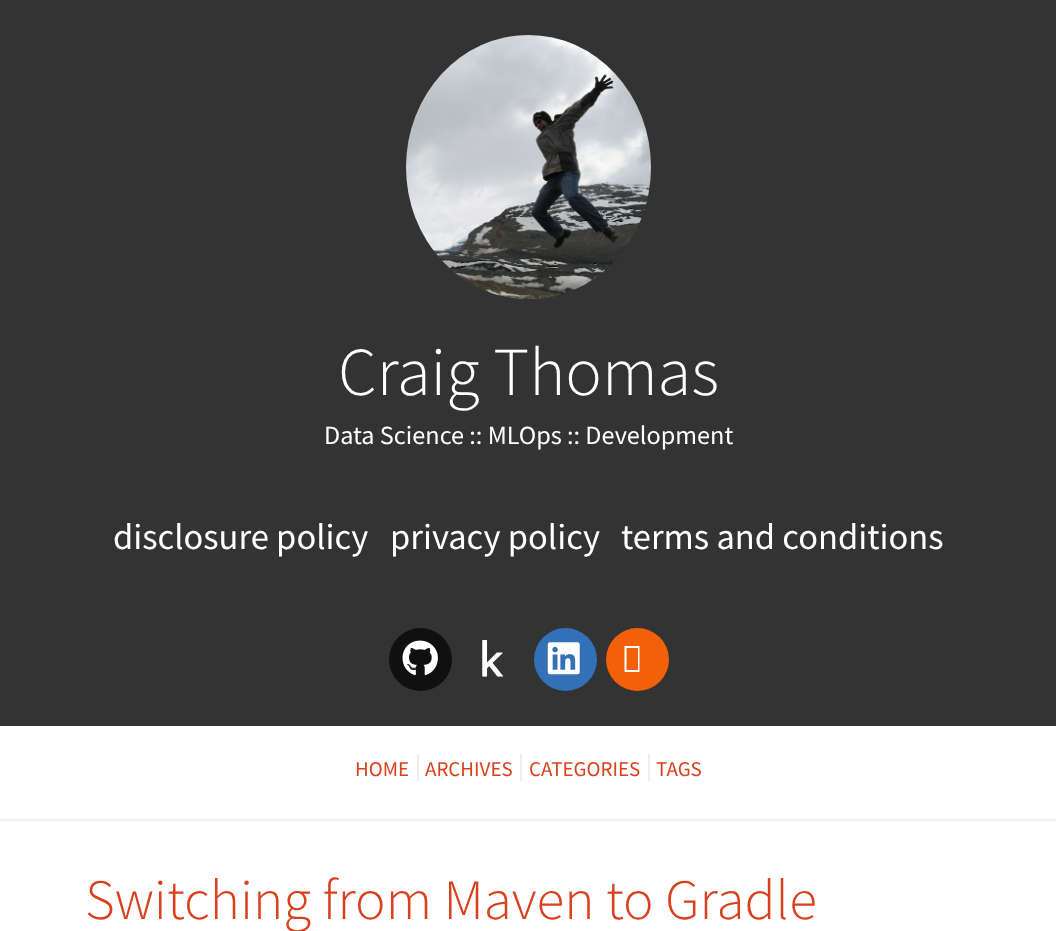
<svg xmlns="http://www.w3.org/2000/svg" width="1056" height="931">
<rect width="100%" height="100%" fill="#fff"/>
<rect width="1056" height="726" fill="#333"/>
<image x="406" y="35" width="245" height="264" href="media/1.png"/>
<text x="338" y="395" style="font-family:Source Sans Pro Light;font-size:68.5px;font-weight:300;fill:#fff">Craig Thomas</text>
<text x="324" y="444" style="font-family:Source Sans Pro;font-size:26.25px;fill:#fff">Data Science :: MLOps :: Development</text>
<text x="113" y="549" style="font-family:Source Sans Pro;font-size:36.5px;fill:#fff">disclosure policy</text>
<text x="390" y="549" style="font-family:Source Sans Pro;font-size:36.5px;fill:#fff">privacy policy</text>
<text x="621" y="549" style="font-family:Source Sans Pro;font-size:36.5px;fill:#fff">terms and conditions</text>
<circle cx="420.5" cy="659.5" r="31.5" fill="#111010"/>
<image x="402" y="640" width="36" height="36" href="media/2.png"/>
<image x="482" y="640" width="22" height="37" href="media/3.png"/>
<circle cx="565.5" cy="659.5" r="31.5" fill="#3371b7"/>
<image x="547" y="642" width="33" height="33" href="media/4.png"/>
<circle cx="637.5" cy="659.5" r="31.5" fill="#f26109"/>
<path d="M624.5 672v-26h15v26zm2-2h11.5v-22h-11.5z" fill="#fff"/>
<rect y="819" width="1056" height="2" fill="#eee"/>
<text x="355" y="776" style="font-family:Source Sans Pro;font-size:21px;fill:#d9411e">HOME</text>
<rect x="417" y="754" width="2" height="27" fill="#eee"/>
<text x="425" y="776" style="font-family:Source Sans Pro;font-size:21px;fill:#d9411e">ARCHIVES</text>
<rect x="520" y="754" width="2" height="27" fill="#eee"/>
<text x="529" y="776" style="font-family:Source Sans Pro;font-size:21px;fill:#d9411e">CATEGORIES</text>
<rect x="648" y="754" width="2" height="27" fill="#eee"/>
<text x="656" y="776" style="font-family:Source Sans Pro;font-size:21px;fill:#d9411e">TAGS</text>
<text x="85" y="919" style="font-family:Source Sans Pro Light;font-size:57.1px;font-weight:300;fill:#d9411e">Switching from Maven to Gradle</text>
</svg>
